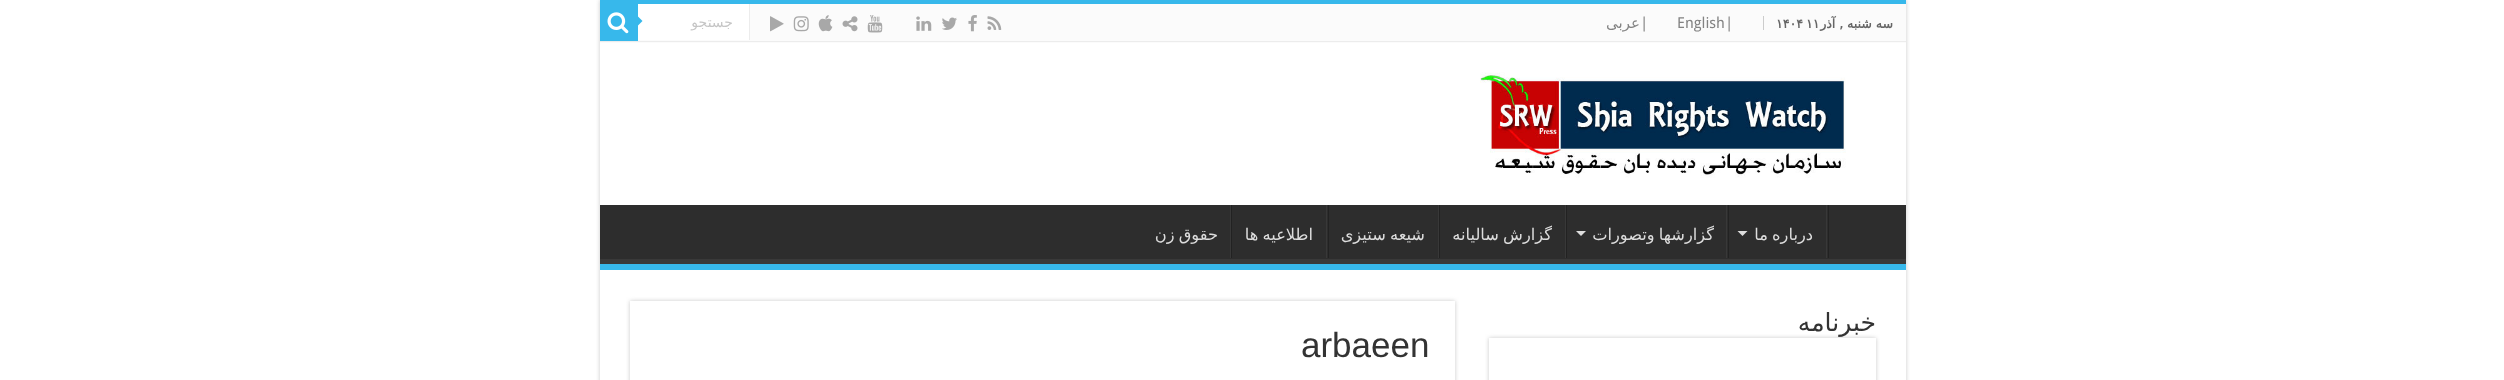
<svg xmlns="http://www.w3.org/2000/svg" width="2504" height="380">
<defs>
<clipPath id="clip1"><path d="M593 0h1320v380h-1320zm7 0h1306v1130h-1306z" clip-rule="evenodd"/></clipPath>
<clipPath id="clip2"><rect x="600" y="205" width="1306" height="59"/></clipPath>
<clipPath id="clip3"><path d="M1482 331h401v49h-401zm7 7h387v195h-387z" clip-rule="evenodd"/></clipPath>
</defs>
<rect width="100%" height="100%" fill="#fff"/>
<g clip-path="url(#clip1)">
<rect x="600" width="1306" height="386" fill="#cacaca" filter="blur(2px)"/>
</g>
<rect x="600" width="1306" height="4" fill="#37b8eb"/>
<rect x="600" y="4" width="1306" height="39" fill="#fbfbfb"/>
<rect x="600" y="41" width="1306" height="1" fill="#ececec"/>
<rect x="1763" y="16" width="1" height="14" fill="#ccc"/>
<text x="1893" y="28" style="font-family:DejaVu Sans;font-size:12.5px;font-weight:bold;direction:rtl;fill:#666">سه شنبه , آذر</text>
<text x="1806" y="28" style="font-family:DejaVu Sans;font-size:12.5px;font-weight:bold;fill:#666">۱۱</text>
<text x="1776" y="28" style="font-family:DejaVu Sans;font-size:12.5px;font-weight:bold;fill:#666">۱۴۰۴</text>
<text x="1677" y="28" style="font-family:Droid Sans;font-size:15px;fill:#838383">English|</text>
<text x="1640" y="28" style="font-family:Droid Sans;font-size:15px;fill:#838383">|</text>
<text x="1640" y="28" style="font-family:DejaVu Sans;font-size:15px;direction:rtl;fill:#838383">عربی</text>
<image x="987" y="16" width="15" height="14" href="media/1.png"/>
<image x="968" y="15" width="9" height="17" href="media/2.png"/>
<image x="942" y="17" width="15" height="13" href="media/3.png"/>
<image x="916" y="16" width="16" height="15" href="media/4.png"/>
<image x="867" y="15" width="16" height="18" href="media/5.png"/>
<image x="842" y="16" width="16" height="16" href="media/6.png"/>
<image x="818" y="15" width="15" height="17" href="media/7.png"/>
<image x="793" y="16" width="16" height="16" href="media/8.png"/>
<image x="770" y="16" width="14" height="16" href="media/9.png"/>
<rect x="638" y="4" width="111" height="36" fill="#fff"/>
<rect x="749" y="4" width="1" height="36" fill="#ececec"/>
<text x="733" y="27" style="font-family:DejaVu Sans;font-size:14px;direction:rtl;fill:#c5c5c5">جستجو</text>
<rect x="600" y="4" width="38" height="37" fill="#37b8eb"/>
<image x="607" y="12" width="22" height="22" href="media/10.png"/>
<path d="M637.5 26v-10l5 5z" fill="#37b8eb"/>
<image x="1480" y="72" width="366" height="106" href="media/11.png"/>
<rect x="600" y="205" width="1306" height="54" fill="#2d2d2d"/>
<g clip-path="url(#clip2)">
<path d="M476 81h1554v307h-1554zm123 117h1306c1 0 1 0 1 1v59c0 0 0 1-1 1h-1306c-1 0-1-1-1-1v-59c0-1 0-1 1-1z" fill="#393939" fill-rule="evenodd"/>
</g>
<rect x="600" y="264" width="1306" height="6" fill="#37b8eb"/>
<rect x="1828" y="205" width="1" height="53" fill="#222"/>
<rect x="1826" y="205" width="1" height="53" fill="#383838"/>
<text x="1813" y="240" word-spacing="-1" style="font-family:DejaVu Sans;font-size:16.25px;direction:rtl;fill:#ddd">درباره ما</text>
<path d="M1737.5 231h10l-5 5z" fill="#ddd"/>
<rect x="1728" y="205" width="1" height="53" fill="#222"/>
<rect x="1726" y="205" width="1" height="53" fill="#383838"/>
<text x="1714" y="240" word-spacing="-1" style="font-family:DejaVu Sans;font-size:16.25px;direction:rtl;fill:#ddd">گزارشها وتصورات</text>
<path d="M1576 231h10l-5 5z" fill="#ddd"/>
<rect x="1566" y="205" width="1" height="53" fill="#222"/>
<rect x="1565" y="205" width="1" height="53" fill="#383838"/>
<text x="1552" y="240" word-spacing="-1" style="font-family:DejaVu Sans;font-size:16.25px;direction:rtl;fill:#ddd">گزارش سالیانه</text>
<rect x="1439" y="205" width="1" height="53" fill="#222"/>
<rect x="1438" y="205" width="1" height="53" fill="#383838"/>
<text x="1425" y="240" word-spacing="-1" style="font-family:DejaVu Sans;font-size:16.25px;direction:rtl;fill:#ddd">شیعه ستیزى</text>
<rect x="1328" y="205" width="1" height="53" fill="#222"/>
<rect x="1326" y="205" width="1" height="53" fill="#383838"/>
<text x="1313" y="240" word-spacing="-1" style="font-family:DejaVu Sans;font-size:16.25px;direction:rtl;fill:#ddd">اطلاعیه ها</text>
<rect x="1231" y="205" width="1" height="53" fill="#222"/>
<rect x="1230" y="205" width="1" height="53" fill="#383838"/>
<text x="1218" y="240" word-spacing="-1" style="font-family:DejaVu Sans;font-size:16.25px;direction:rtl;fill:#ddd">حقوق زن</text>
<g clip-path="url(#clip3)">
<rect x="1489" y="338" width="387" height="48" fill="#cacaca" filter="blur(2px)"/>
</g>
<text x="1876" y="331" style="font-family:DejaVu Sans;font-size:25px;direction:rtl;fill:#333">خبرنامه</text>
<rect x="630" y="301" width="825" height="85" fill="#cacaca" filter="blur(2px)"/>
<rect x="630" y="301" width="825" height="79" fill="#fff"/>
<text x="1301" y="357" style="font-family:Liberation Sans;font-size:35px;fill:#333">arbaeen</text>
</svg>
